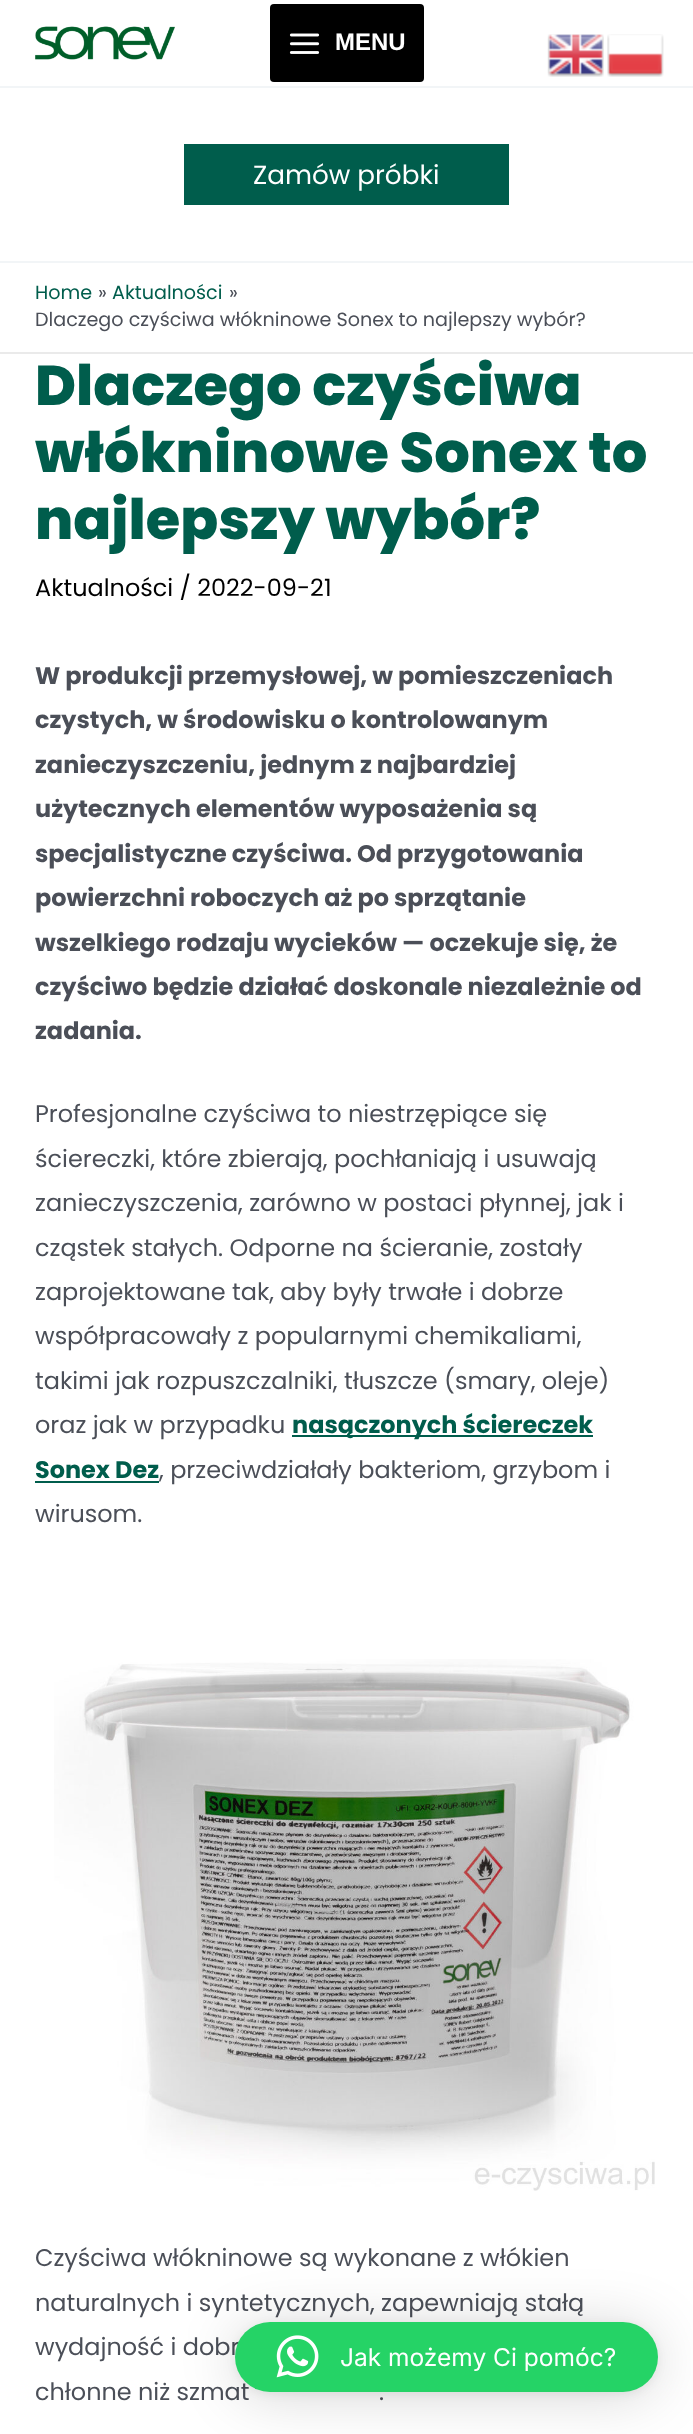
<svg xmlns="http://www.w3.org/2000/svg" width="693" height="2434">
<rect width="100%" height="100%" fill="#fff"/>
<rect y="86" width="693" height="2" fill="#f2f5f7"/>
<image x="35" y="26" width="140" height="34" href="media/1.png"/>
<rect x="270" y="4" width="154" height="78" rx="4" fill="#000"/>
<image x="289" y="33" width="31" height="21" href="media/2.png"/>
<text x="335" y="50" style="font-family:Liberation Sans;font-size:23.95px;font-weight:bold;fill:#fff">MENU</text>
<rect y="261" width="693" height="2" fill="#f2f5f7"/>
<rect x="184" y="144" width="325" height="61" fill="#005d4c"/>
<text x="253" y="184" style="font-family:Poppins;font-size:26.25px;fill:#fff">Zamów próbki</text>
<rect y="352" width="693" height="2" fill="#eaeaea"/>
<text x="35" y="299" style="font-family:Poppins;font-size:19.15px;fill:#005d4c">Home</text>
<text x="98" y="299" style="font-family:Poppins;font-size:19.15px;fill:#4b4f58">»</text>
<text x="112" y="299" style="font-family:Poppins;font-size:19.15px;fill:#005d4c">Aktualności</text>
<text x="229" y="299" style="font-family:Poppins;font-size:19.15px;fill:#4b4f58">»</text>
<text x="35" y="326" style="font-family:Poppins;font-size:19.15px;fill:#4b4f58">Dlaczego czyściwa włókninowe Sonex to najlepszy wybór?</text>
<text x="35" y="405" style="font-family:Poppins;font-size:55.9px;font-weight:800;fill:#005d4c">Dlaczego czyściwa</text>
<text x="35" y="472" style="font-family:Poppins;font-size:55.9px;font-weight:800;fill:#005d4c">włókninowe Sonex to</text>
<text x="35" y="539" style="font-family:Poppins;font-size:55.9px;font-weight:800;fill:#005d4c">najlepszy wybór?</text>
<text x="35" y="596" style="font-family:Poppins;font-size:23.95px;fill:#000">Aktualności / 2022-09-21</text>
<text x="35" y="684" style="font-family:Poppins;font-size:23.95px;font-weight:bold;fill:#4b4f58">W produkcji przemysłowej, w pomieszczeniach</text>
<text x="35" y="728" style="font-family:Poppins;font-size:23.95px;font-weight:bold;fill:#4b4f58">czystych, w środowisku o kontrolowanym</text>
<text x="35" y="773" style="font-family:Poppins;font-size:23.95px;font-weight:bold;fill:#4b4f58">zanieczyszczeniu, jednym z najbardziej</text>
<text x="35" y="817" style="font-family:Poppins;font-size:23.95px;font-weight:bold;fill:#4b4f58">użytecznych elementów wyposażenia są</text>
<text x="35" y="862" style="font-family:Poppins;font-size:23.95px;font-weight:bold;fill:#4b4f58">specjalistyczne czyściwa. Od przygotowania</text>
<text x="35" y="906" style="font-family:Poppins;font-size:23.95px;font-weight:bold;fill:#4b4f58">powierzchni roboczych aż po sprzątanie</text>
<text x="35" y="951" style="font-family:Poppins;font-size:23.95px;font-weight:bold;fill:#4b4f58">wszelkiego rodzaju wycieków — oczekuje się, że</text>
<text x="35" y="995" style="font-family:Poppins;font-size:23.95px;font-weight:bold;fill:#4b4f58">czyściwo będzie działać doskonale niezależnie od</text>
<text x="35" y="1039" style="font-family:Poppins;font-size:23.95px;font-weight:bold;fill:#4b4f58">zadania.</text>
<text x="35" y="1122" style="font-family:Poppins;font-size:23.95px;fill:#4b4f58">Profesjonalne czyściwa to niestrzępiące się</text>
<text x="35" y="1167" style="font-family:Poppins;font-size:23.95px;fill:#4b4f58">ściereczki, które zbierają, pochłaniają i usuwają</text>
<text x="35" y="1211" style="font-family:Poppins;font-size:23.95px;fill:#4b4f58">zanieczyszczenia, zarówno w postaci płynnej, jak i</text>
<text x="35" y="1256" style="font-family:Poppins;font-size:23.95px;fill:#4b4f58">cząstek stałych. Odporne na ścieranie, zostały</text>
<text x="35" y="1300" style="font-family:Poppins;font-size:23.95px;fill:#4b4f58">zaprojektowane tak, aby były trwałe i dobrze</text>
<text x="35" y="1344" style="font-family:Poppins;font-size:23.95px;fill:#4b4f58">współpracowały z popularnymi chemikaliami,</text>
<text x="35" y="1389" style="font-family:Poppins;font-size:23.95px;fill:#4b4f58">takimi jak rozpuszczalniki, tłuszcze (smary, oleje)</text>
<text x="35" y="1433" style="font-family:Poppins;font-size:23.95px;fill:#4b4f58">oraz jak w przypadku</text>
<rect x="292" y="1435" width="301" height="2" fill="#005d4c"/>
<text x="292" y="1433" style="font-family:Poppins;font-size:23.95px;font-weight:bold;fill:#005d4c">nasączonych ściereczek</text>
<text x="35" y="1478" style="font-family:Poppins;font-size:23.95px;font-weight:bold;fill:#005d4c">Sonex Dez</text>
<rect x="35" y="1481" width="124" height="2" fill="#005d4c"/>
<text x="159" y="1478" style="font-family:Poppins;font-size:23.95px;fill:#4b4f58">, przeciwdziałały bakteriom, grzybom i</text>
<text x="35" y="1522" style="font-family:Poppins;font-size:23.95px;fill:#4b4f58">wirusom.</text>
<image x="54" y="1659" width="601" height="532" href="media/3.png"/>
<text x="35" y="2266" style="font-family:Poppins;font-size:23.95px;fill:#4b4f58">Czyściwa włókninowe są wykonane z włókien</text>
<text x="35" y="2311" style="font-family:Poppins;font-size:23.95px;fill:#4b4f58">naturalnych i syntetycznych, zapewniają stałą</text>
<text x="35" y="2355" style="font-family:Poppins;font-size:23.95px;fill:#4b4f58">wydajność i dobr</text>
<text x="35" y="2400" style="font-family:Poppins;font-size:23.95px;fill:#4b4f58">chłonne niż szmat</text>
<text x="379" y="2400" style="font-family:Poppins;font-size:23.95px;fill:#4b4f58">.</text>
<image x="547" y="34" width="57" height="43" href="media/4.png"/>
<image x="607" y="34" width="57" height="43" href="media/5.png"/>
<rect x="235" y="2326" width="423" height="70" rx="35" fill="#00000029" filter="blur(28px)"/>
<rect x="235" y="2324" width="423" height="70" rx="35" fill="#0000000f" filter="blur(5px)"/>
<rect x="235" y="2322" width="423" height="70" rx="35" fill="#25d366"/>
<image x="276" y="2335" width="43" height="43" href="media/6.png"/>
<text x="340" y="2366" style="font-family:Inter;font-size:24.5px;fill:#fff">Jak możemy Ci pomóc?</text>
</svg>
